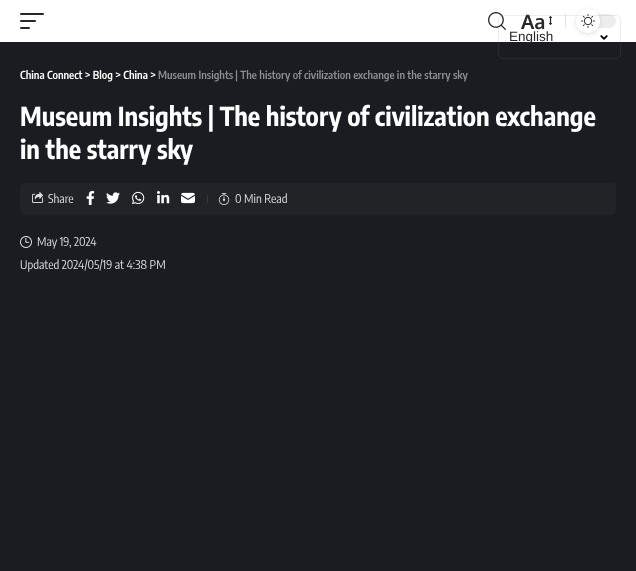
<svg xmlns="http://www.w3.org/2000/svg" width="636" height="571">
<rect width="100%" height="100%" fill="#fff"/>
<rect x="20" y="13" width="24" height="2" rx="1" fill="#282828"/>
<rect x="20" y="20" width="16" height="2" rx="1" fill="#282828"/>
<rect x="20" y="27" width="10" height="2" rx="1" fill="#282828"/>
<image x="488" y="12" width="18" height="18" href="media/1.png"/>
<text x="521" y="29" style="font-family:Oxygen;font-size:20px;font-weight:bold;fill:#282828">Aa</text>
<image x="548" y="16" width="5" height="9" href="media/2.png"/>
<rect x="565" y="14" width="1" height="14" fill="#e4e4e4"/>
<rect x="576" y="14" width="40" height="14" rx="7" fill="#ededed"/>
<rect x="576" y="10" width="24" height="24" rx="12" fill="#0000001f" filter="blur(2px)"/>
<circle cx="588" cy="21" r="12" fill="#fff"/>
<image x="581" y="14" width="14" height="14" href="media/3.png"/>
<rect y="42" width="636" height="529" fill="#191c20"/>
<text x="20" y="79" style="font-family:Encode Sans Condensed;font-size:11px;font-weight:600;fill:#fff">China Connect &gt; Blog &gt; China &gt;</text>
<text x="158" y="79" style="font-family:Encode Sans Condensed;font-size:11px;font-weight:600;fill:#8c8e90">Museum Insights | The history of civilization exchange in the starry sky</text>
<text x="20" y="126" style="font-family:Encode Sans Condensed;font-size:26px;font-weight:bold;fill:#fff">Museum Insights | The history of civilization exchange</text>
<text x="20" y="159" style="font-family:Encode Sans Condensed;font-size:26px;font-weight:bold;fill:#fff">in the starry sky</text>
<rect x="20" y="183" width="596" height="32" rx="5" fill="#212427"/>
<image x="32" y="192" width="12" height="11" href="media/4.png"/>
<text x="48" y="203" style="font-family:Encode Sans Condensed;font-size:12px;fill:#ddd">Share</text>
<image x="86" y="191" width="9" height="14" href="media/5.png"/>
<image x="106" y="192" width="14" height="12" href="media/6.png"/>
<image x="132" y="191" width="13" height="14" href="media/7.png"/>
<image x="157" y="191" width="13" height="13" href="media/8.png"/>
<image x="181" y="192" width="14" height="12" href="media/9.png"/>
<rect x="207" y="195" width="1" height="8" fill="#36383b"/>
<image x="218" y="193" width="12" height="12" href="media/10.png"/>
<text x="235" y="203" style="font-family:Encode Sans Condensed;font-size:12px;fill:#ddd">0 Min Read</text>
<image x="20" y="236" width="12" height="12" href="media/11.png"/>
<text x="37" y="246" style="font-family:Encode Sans Condensed;font-size:12px;fill:#ddd">May 19, 2024</text>
<text x="20" y="269" style="font-family:Encode Sans Condensed;font-size:12px;fill:#ddd">Updated 2024/05/19 at 4:38 PM</text>
<image x="600" y="35" width="8" height="5" href="media/12.png"/>
<rect x="498.5" y="15.5" width="122" height="43" rx="4.5" fill="none" stroke="#88888826"/>
<text x="509" y="41" style="font-family:Liberation Sans;font-size:13.5px;fill:#282828">English</text>
</svg>
